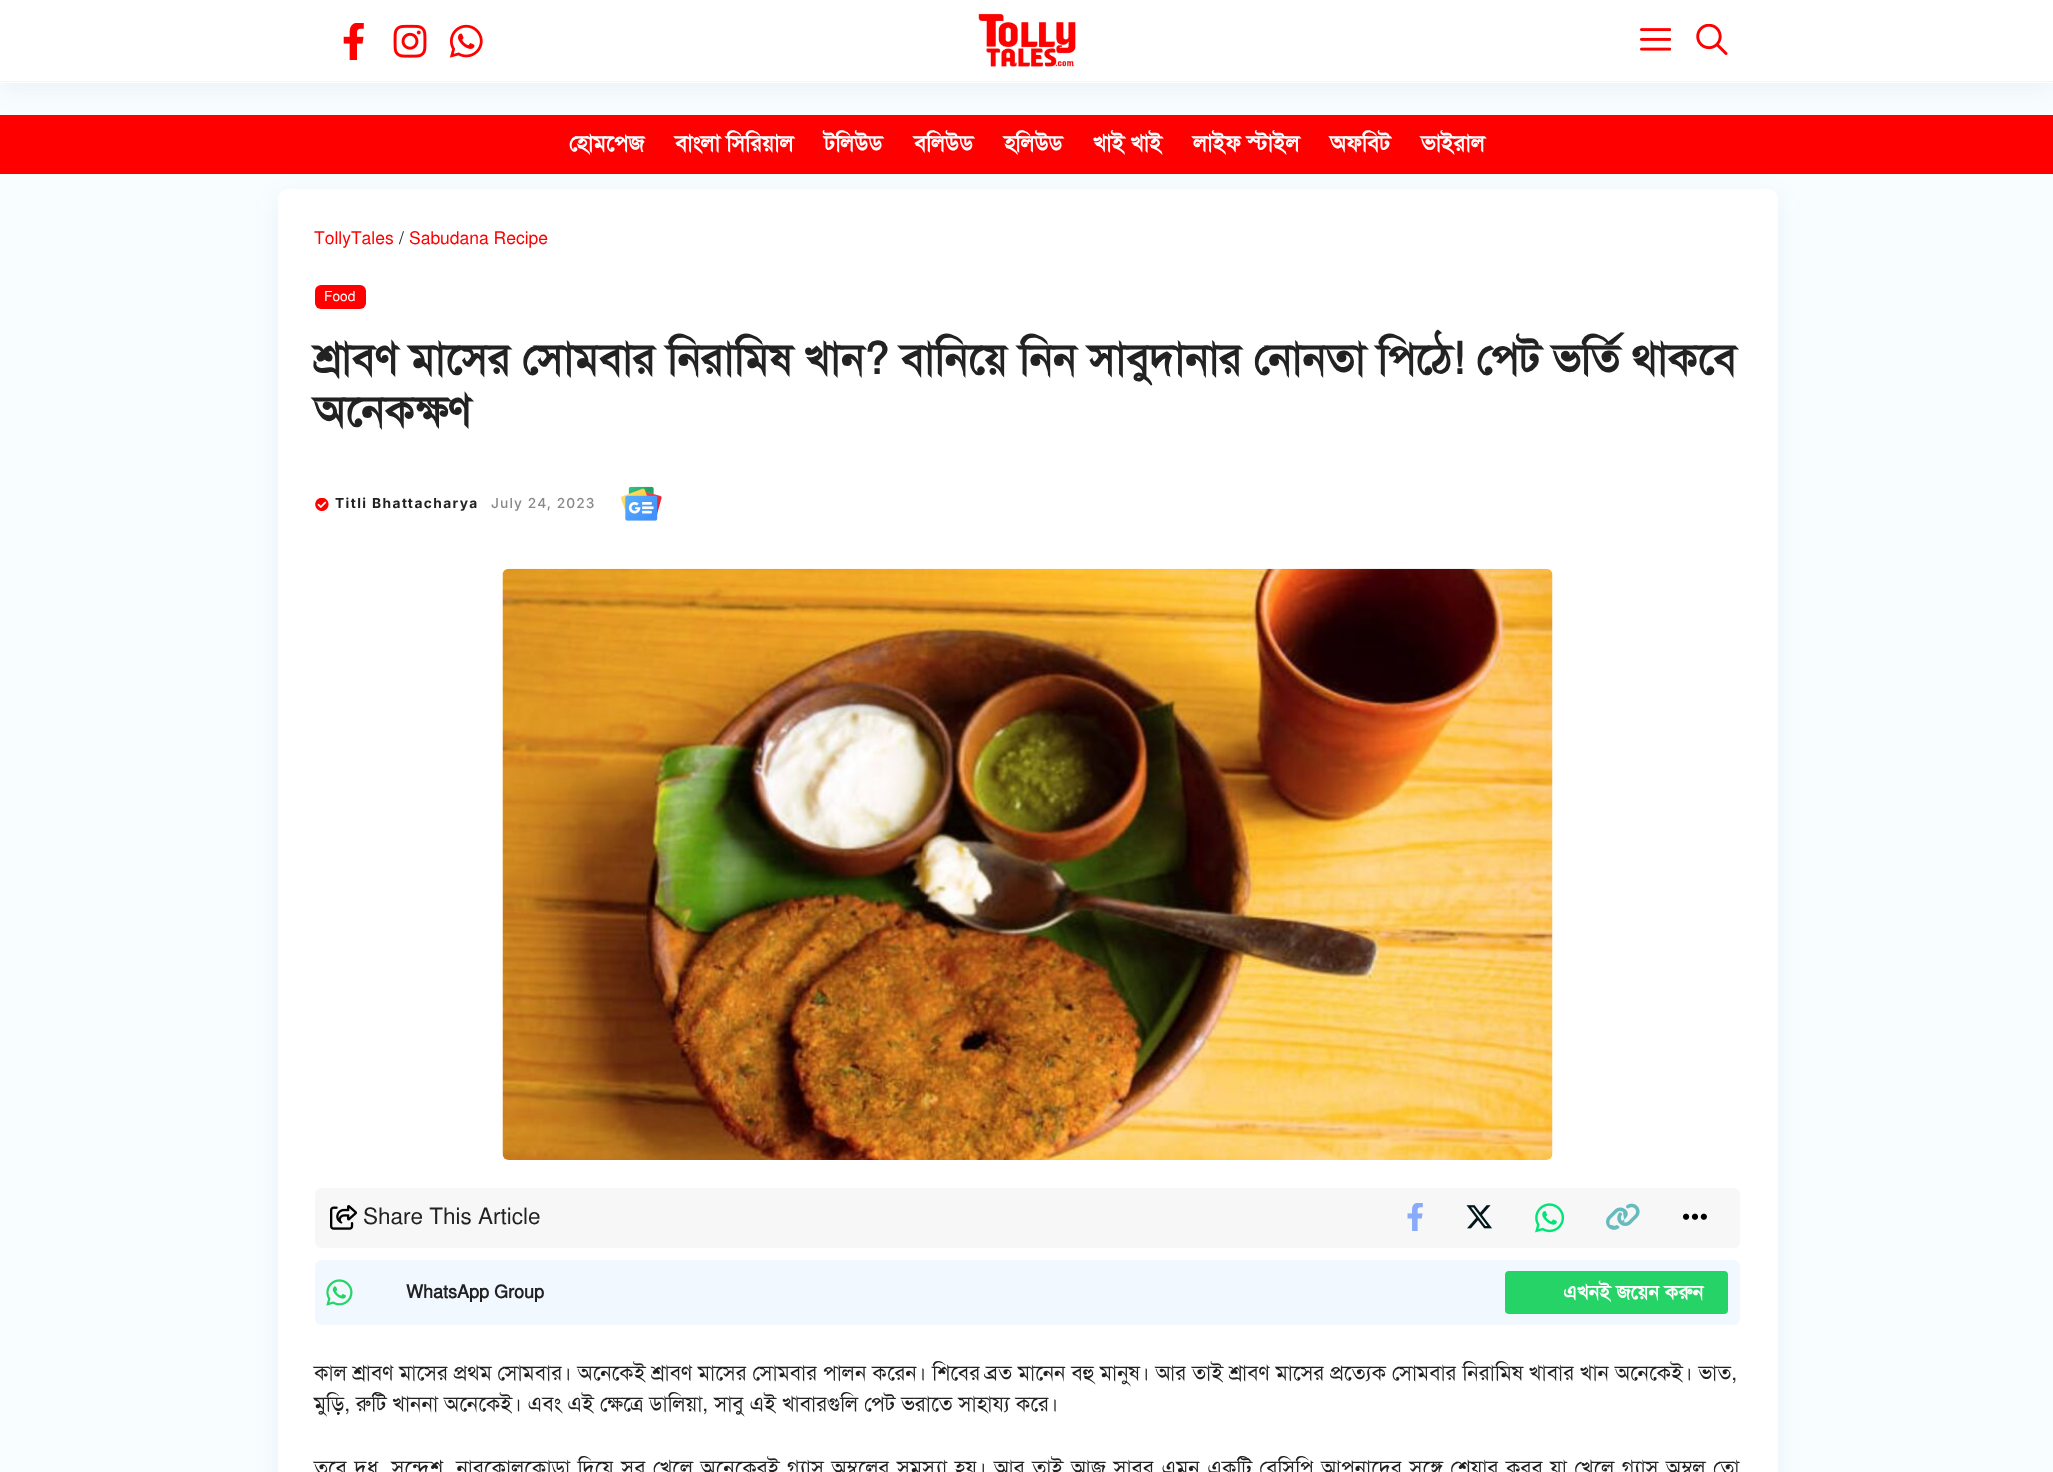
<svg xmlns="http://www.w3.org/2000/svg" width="2053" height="1472">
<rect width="100%" height="100%" fill="#f8fdff"/>
<rect y="6" width="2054" height="83" fill="#58539914" filter="blur(12.5px)"/>
<rect width="2053" height="83" fill="#fff"/>
<rect y="81" width="2053" height="1" fill="#f4f4f4"/>
<image x="343" y="23" width="21" height="37" href="media/1.png"/>
<image x="393" y="24" width="34" height="34" href="media/2.png"/>
<image x="449" y="24" width="34" height="34" href="media/3.png"/>
<image x="978" y="13" width="98" height="54" href="media/4.png"/>
<image x="1640" y="28" width="31" height="23" href="media/5.png"/>
<image x="1696" y="24" width="32" height="31" href="media/6.png"/>
<rect x="278" y="195" width="1500" height="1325" rx="10" fill="#58539914" filter="blur(12.5px)"/>
<rect y="115" width="2053" height="59" fill="#f00"/>
<text x="569" y="151" style="font-family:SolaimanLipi;font-size:22.5px;font-weight:bold;fill:#fff">হোমপেজ</text>
<text x="675" y="151" style="font-family:SolaimanLipi;font-size:22.5px;font-weight:bold;fill:#fff">বাংলা সিরিয়াল</text>
<text x="824" y="151" style="font-family:SolaimanLipi;font-size:22.5px;font-weight:bold;fill:#fff">টলিউড</text>
<text x="914" y="151" style="font-family:SolaimanLipi;font-size:22.5px;font-weight:bold;fill:#fff">বলিউড</text>
<text x="1004" y="151" style="font-family:SolaimanLipi;font-size:22.5px;font-weight:bold;fill:#fff">হলিউড</text>
<text x="1093" y="151" style="font-family:SolaimanLipi;font-size:22.5px;font-weight:bold;fill:#fff">খাই খাই</text>
<text x="1193" y="151" style="font-family:SolaimanLipi;font-size:22.5px;font-weight:bold;fill:#fff">লাইফ স্টাইল</text>
<text x="1330" y="151" style="font-family:SolaimanLipi;font-size:22.5px;font-weight:bold;fill:#fff">অফবিট</text>
<text x="1421" y="151" style="font-family:SolaimanLipi;font-size:22.5px;font-weight:bold;fill:#fff">ভাইরাল</text>
<rect x="278" y="189" width="1500" height="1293" rx="10" fill="#fff"/>
<text x="314" y="244" style="font-family:SolaimanLipi;font-size:17.5px;fill:#f00">TollyTales</text>
<text x="399" y="244" style="font-family:SolaimanLipi;font-size:17.5px;fill:#222">/</text>
<text x="409" y="244" style="font-family:SolaimanLipi;font-size:17.5px;fill:#f00">Sabudana Recipe</text>
<rect x="315" y="285" width="51" height="24" rx="6" fill="#f00"/>
<text x="324" y="301" style="font-family:SolaimanLipi;font-size:13.75px;fill:#fff">Food</text>
<text x="314" y="374" style="font-family:SolaimanLipi;font-size:43.75px;font-weight:bold;fill:#222">শ্রাবণ মাসের সোমবার নিরামিষ খান? বানিয়ে নিন সাবুদানার নোনতা পিঠে! পেট ভর্তি থাকবে</text>
<text x="314" y="426" style="font-family:SolaimanLipi;font-size:43.75px;font-weight:bold;fill:#222">অনেকক্ষণ</text>
<image x="315" y="498" width="14" height="13" href="media/7.png"/>
<text x="335" y="508" style="font-family:Inter;font-size:13.75px;font-weight:bold;letter-spacing:1.4px;fill:#222">Titli Bhattacharya</text>
<text x="491" y="508" style="font-family:Inter;font-size:13.75px;font-weight:500;letter-spacing:1.1px;fill:#888">July 24, 2023</text>
<image x="620" y="486" width="42" height="35" href="media/8.png"/>
<image x="502" y="568" width="1051" height="592" href="media/9.png"/>
<rect x="315" y="1188" width="1425" height="60" rx="6" fill="#f7f7f7"/>
<image x="330" y="1205" width="27" height="25" href="media/10.png"/>
<text x="363" y="1224" style="font-family:SolaimanLipi;font-size:22.5px;fill:#222">Share This Article</text>
<image x="1407" y="1203" width="16" height="28" href="media/11.png"/>
<image x="1466" y="1205" width="26" height="24" href="media/12.png"/>
<image x="1535" y="1203" width="29" height="30" href="media/13.png"/>
<image x="1606" y="1203" width="34" height="27" href="media/14.png"/>
<image x="1683" y="1213" width="24" height="7" href="media/15.png"/>
<rect x="315" y="1260" width="1425" height="65" rx="6" fill="#f1f8ff"/>
<image x="326" y="1279" width="27" height="27" href="media/16.png"/>
<text x="406" y="1298" style="font-family:SolaimanLipi;font-size:18px;font-weight:bold;fill:#222">WhatsApp Group</text>
<rect x="1505" y="1271" width="223" height="43" rx="4" fill="#25d366"/>
<text x="1563" y="1299" style="font-family:SolaimanLipi;font-size:20px;font-weight:bold;fill:#fff">এখনই জয়েন করুন</text>
<text x="314" y="1380" style="font-family:SolaimanLipi;font-size:21.25px;fill:#222">কাল শ্রাবণ মাসের প্রথম সোমবার।‌ অনেকেই শ্রাবণ মাসের সোমবার পালন করেন। শিবের ব্রত মানেন বহু মানুষ।‌ আর তাই শ্রাবণ মাসের প্রত্যেক সোমবার নিরামিষ খাবার খান অনেকেই। ভাত,</text>
<text x="314" y="1411" style="font-family:SolaimanLipi;font-size:21.25px;fill:#222">মুড়ি, রুটি খাননা অনেকেই। এবং এই ক্ষেত্রে ডালিয়া, সাবু এই খাবারগুলি পেট ভরাতে সাহায্য করে।</text>
<text x="314" y="1475" word-spacing="1.65" style="font-family:SolaimanLipi;font-size:21.25px;fill:#222">তবে দুধ, সন্দেশ, নারকোলকোড়া দিয়ে সব খেলে অনেকেরই গ্যাস অম্বলের সমস্যা হয়। আর তাই আজ সাবুর এমন একটি রেসিপি আপনাদের সঙ্গে শেয়ার করব যা খেলে গ্যাস অম্বল তো</text>
</svg>
